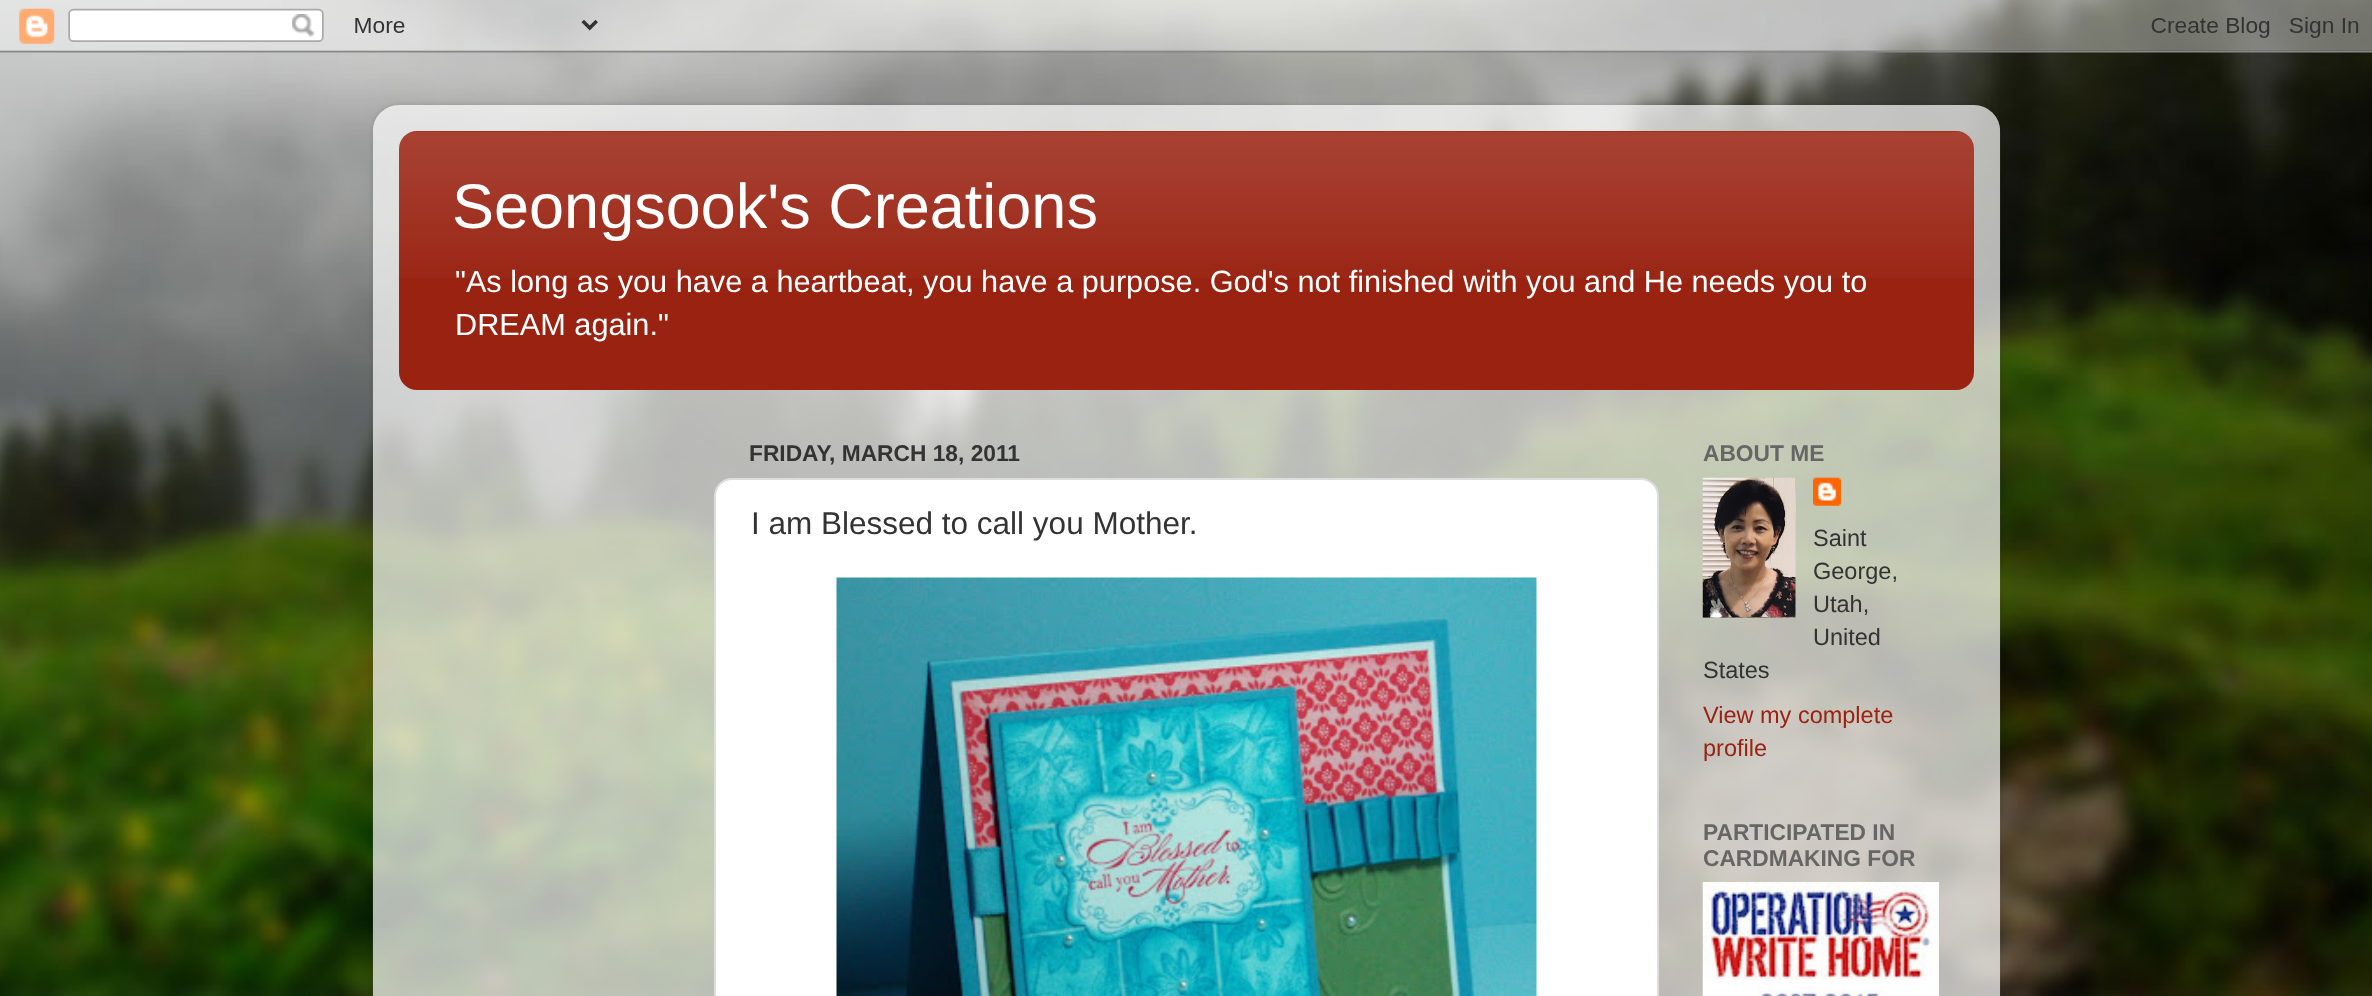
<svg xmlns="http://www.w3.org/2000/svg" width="2372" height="996">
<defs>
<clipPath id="clip1"><path d="M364 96h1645v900h-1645zm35 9h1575c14.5 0 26 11.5 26 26v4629c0 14.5-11.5 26-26 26h-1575c-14.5 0-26-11.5-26-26v-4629c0-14.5 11.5-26 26-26z" clip-rule="evenodd"/></clipPath>
</defs>
<rect width="100%" height="100%" fill="#fff"/>
<image x="0" y="0" width="2372" height="996" href="media/1.png"/>
<image x="0" y="0" width="2372" height="53" href="media/2.png"/>
<g clip-path="url(#clip1)">
<rect x="373" y="105" width="1627" height="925" rx="26" fill="#00000026" filter="blur(2.5px)"/>
</g>
<image x="372" y="105" width="1629" height="891" href="media/3.png"/>
<rect x="399" y="131" width="1575" height="259" rx="18" fill="#921"/>
<image x="399" y="131" width="1575" height="147" href="media/4.png"/>
<text x="452" y="228" style="font-family:Liberation Sans;font-size:63px;fill:#fff">Seongsook's Creations</text>
<text x="455" y="292" style="font-family:Liberation Sans;font-size:30.7px;fill:#fff">"As long as you have a heartbeat, you have a purpose. God's not finished with you and He needs you to</text>
<text x="455" y="335" style="font-family:Liberation Sans;font-size:30.7px;fill:#fff">DREAM again."</text>
<text x="749" y="461" style="font-family:Liberation Sans;font-size:22.75px;font-weight:bold;fill:#333">FRIDAY, MARCH 18, 2011</text>
<rect x="715" y="479" width="943" height="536" rx="17" fill="#fff" stroke="#ddd" stroke-width="2"/>
<text x="751" y="534" style="font-family:Liberation Sans;font-size:31.5px;fill:#333">I am Blessed to call you Mother.</text>
<image x="836" y="577" width="701" height="419" href="media/5.png"/>
<text x="1703" y="461" style="font-family:Liberation Sans;font-size:22.75px;font-weight:bold;fill:#666">ABOUT ME</text>
<image x="1702" y="477" width="94" height="141" href="media/6.png"/>
<image x="1813" y="477" width="28" height="29" href="media/7.png"/>
<text x="1813" y="546" style="font-family:Liberation Sans;font-size:23.5px;fill:#333">Saint</text>
<text x="1813" y="579" style="font-family:Liberation Sans;font-size:23.5px;fill:#333">George,</text>
<text x="1813" y="612" style="font-family:Liberation Sans;font-size:23.5px;fill:#333">Utah,</text>
<text x="1813" y="645" style="font-family:Liberation Sans;font-size:23.5px;fill:#333">United</text>
<text x="1703" y="678" style="font-family:Liberation Sans;font-size:23.5px;fill:#333">States</text>
<text x="1703" y="723" style="font-family:Liberation Sans;font-size:23.5px;fill:#921">View my complete</text>
<text x="1703" y="756" style="font-family:Liberation Sans;font-size:23.5px;fill:#921">profile</text>
<text x="1703" y="840" style="font-family:Liberation Sans;font-size:22.75px;font-weight:bold;fill:#666">PARTICIPATED IN</text>
<text x="1703" y="866" style="font-family:Liberation Sans;font-size:22.75px;font-weight:bold;fill:#666">CARDMAKING FOR</text>
<image x="1702" y="882" width="237" height="114" href="media/8.png"/>
</svg>
